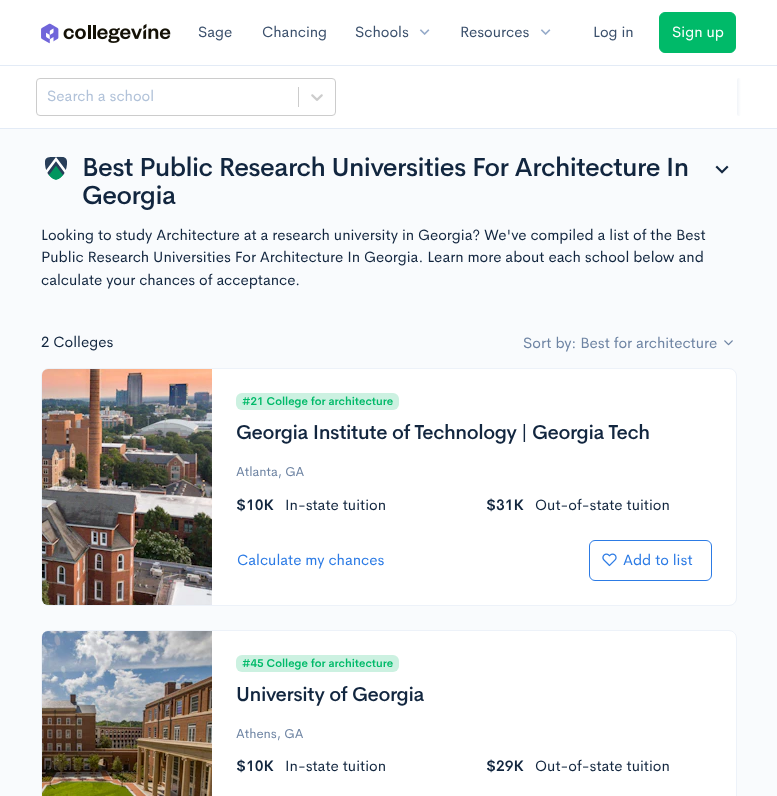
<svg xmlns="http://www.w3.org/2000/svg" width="777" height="796">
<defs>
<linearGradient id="g1" gradientUnits="userSpaceOnUse" x1="737" y1="97" x2="741" y2="97"><stop offset="0" stop-color="#f1f4f8"/><stop offset="1" stop-color="#fff"/></linearGradient>
</defs>
<rect width="100%" height="100%" fill="#f9fbfd"/>
<rect width="777" height="65" fill="#fff"/>
<rect y="65" width="777" height="1" fill="#e3ebf6"/>
<image x="41" y="23" width="130" height="21" href="media/1.png"/>
<text x="198" y="37" style="font-family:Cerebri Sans;font-size:15px;fill:#3b506c">Sage</text>
<text x="262" y="37" style="font-family:Cerebri Sans;font-size:15px;fill:#3b506c">Chancing</text>
<text x="355" y="37" style="font-family:Cerebri Sans;font-size:15px;fill:#3b506c">Schools</text>
<image x="419" y="29" width="11" height="6" href="media/2.png"/>
<text x="460" y="37" style="font-family:Cerebri Sans;font-size:15px;fill:#3b506c">Resources</text>
<image x="540" y="29" width="11" height="6" href="media/2.png"/>
<text x="593" y="37" style="font-family:Cerebri Sans;font-size:15px;fill:#3b506c">Log in</text>
<rect x="659.5" y="12.5" width="76" height="40" rx="5.5" fill="#00ba69" stroke="#00ba69"/>
<text x="672" y="37" style="font-family:Cerebri Sans;font-size:15px;fill:#fff">Sign up</text>
<rect y="66" width="777" height="62" fill="#fff"/>
<rect y="128" width="777" height="1" fill="#e3ebf6"/>
<rect x="36.5" y="78.5" width="299" height="37" rx="3.5" fill="none" stroke="#ccc"/>
<text x="47" y="101" style="font-family:Cerebri Sans;font-size:15px;fill:#b1c2d9">Search a school</text>
<rect x="298" y="87" width="1" height="20" fill="#ccc"/>
<image x="311" y="94" width="12" height="7" href="media/3.png"/>
<rect x="737" y="78" width="4" height="38" rx="2" fill="url(#g1)"/>
<image x="45" y="156" width="22" height="24" href="media/4.png"/>
<text x="82" y="176" style="font-family:Cerebri Sans;font-size:26px;font-weight:500;letter-spacing:-0.52px;fill:#12263f">Best Public Research Universities For Architecture In</text>
<text x="82" y="204" style="font-family:Cerebri Sans;font-size:26px;font-weight:500;letter-spacing:-0.52px;fill:#12263f">Georgia</text>
<image x="715" y="165" width="14" height="9" href="media/5.png"/>
<text x="41" y="240" style="font-family:Cerebri Sans;font-size:15px;fill:#12263f">Looking to study Architecture at a research university in Georgia? We've compiled a list of the Best</text>
<text x="41" y="262" style="font-family:Cerebri Sans;font-size:15px;fill:#12263f">Public Research Universities For Architecture In Georgia. Learn more about each school below and</text>
<text x="41" y="285" style="font-family:Cerebri Sans;font-size:15px;fill:#12263f">calculate your chances of acceptance.</text>
<text x="41" y="347" style="font-family:Cerebri Sans;font-size:15px;fill:#12263f">2 Colleges</text>
<text x="523" y="348" style="font-family:Cerebri Sans;font-size:15px;fill:#6e84a3">Sort by: Best for architecture</text>
<image x="724" y="340" width="9" height="6" href="media/6.png"/>
<rect x="41.5" y="368.5" width="695" height="237" rx="7.5" fill="#fff" stroke="#edf2f9"/>
<image x="42" y="369" width="170" height="236" href="media/7.png"/>
<rect x="236" y="393" width="163" height="17" rx="6" fill="#ccf1e1"/>
<text x="242" y="405" style="font-family:Cerebri Sans;font-size:11.25px;font-weight:600;fill:#00ba69">#21 College for architecture</text>
<text x="236" y="439" style="font-family:Cerebri Sans;font-size:20px;font-weight:500;letter-spacing:-0.4px;fill:#12263f">Georgia Institute of Technology | Georgia Tech</text>
<text x="236" y="476" style="font-family:Cerebri Sans;font-size:13px;fill:#6e84a3">Atlanta, GA</text>
<text x="236" y="510" style="font-family:Cerebri Sans;font-size:15px;font-weight:600;fill:#12263f">$10K</text>
<text x="285" y="510" style="font-family:Cerebri Sans;font-size:15px;fill:#12263f">In-state tuition</text>
<text x="486" y="510" style="font-family:Cerebri Sans;font-size:15px;font-weight:600;fill:#12263f">$31K</text>
<text x="535" y="510" style="font-family:Cerebri Sans;font-size:15px;fill:#12263f">Out-of-state tuition</text>
<text x="237" y="565" style="font-family:Cerebri Sans;font-size:15px;fill:#2c7be5">Calculate my chances</text>
<rect x="589.5" y="540.5" width="122" height="40" rx="5.5" fill="none" stroke="#2c7be5"/>
<image x="602" y="553" width="15" height="14" href="media/8.png"/>
<text x="623" y="565" style="font-family:Cerebri Sans;font-size:15px;fill:#2c7be5">Add to list</text>
<path d="M49 630h680c4.5 0 8 3.5 8 8v158h-696v-158c0-4.5 3.5-8 8-8z" fill="#fff"/>
<rect x="41.5" y="630.5" width="695" height="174" rx="7.5" fill="none" stroke="#edf2f9"/>
<image x="42" y="631" width="170" height="165" href="media/9.png"/>
<rect x="236" y="655" width="163" height="17" rx="6" fill="#ccf1e1"/>
<text x="242" y="667" style="font-family:Cerebri Sans;font-size:11.25px;font-weight:600;fill:#00ba69">#45 College for architecture</text>
<text x="236" y="701" style="font-family:Cerebri Sans;font-size:20px;font-weight:500;letter-spacing:-0.4px;fill:#12263f">University of Georgia</text>
<text x="236" y="738" style="font-family:Cerebri Sans;font-size:13px;fill:#6e84a3">Athens, GA</text>
<text x="236" y="771" style="font-family:Cerebri Sans;font-size:15px;font-weight:600;fill:#12263f">$10K</text>
<text x="285" y="771" style="font-family:Cerebri Sans;font-size:15px;fill:#12263f">In-state tuition</text>
<text x="486" y="771" style="font-family:Cerebri Sans;font-size:15px;font-weight:600;fill:#12263f">$29K</text>
<text x="535" y="771" style="font-family:Cerebri Sans;font-size:15px;fill:#12263f">Out-of-state tuition</text>
</svg>
